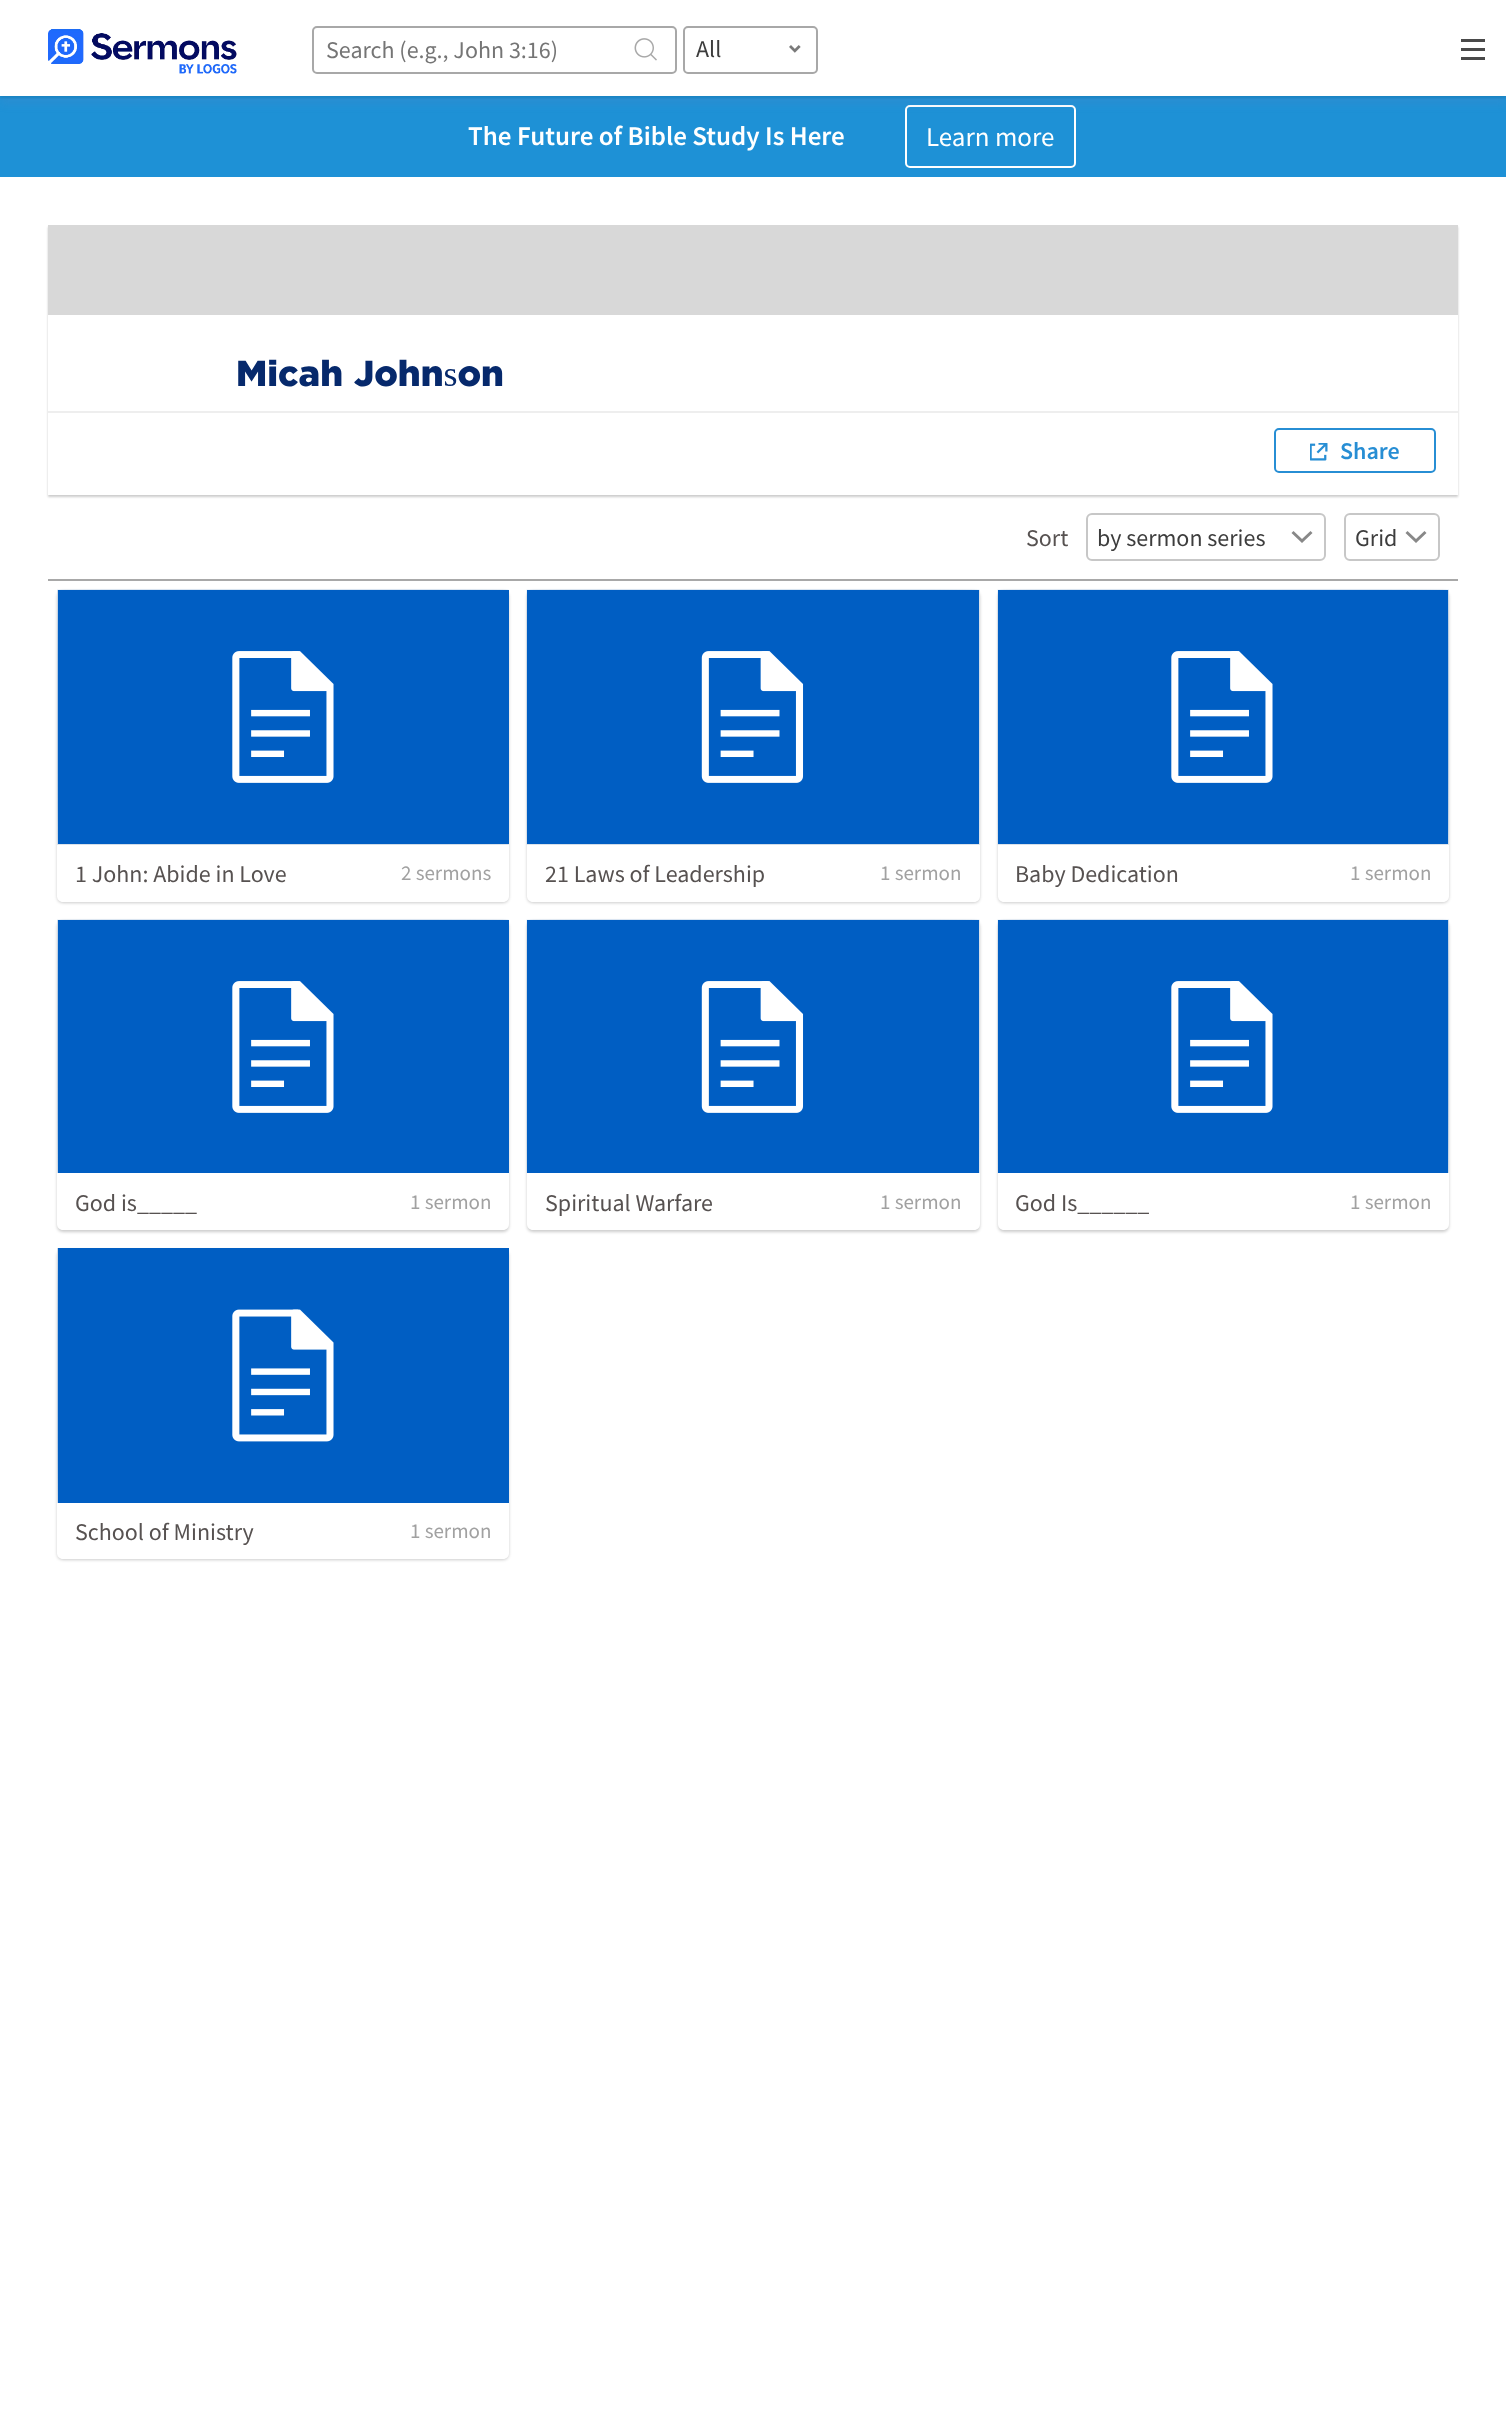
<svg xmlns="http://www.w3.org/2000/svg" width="1506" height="2414">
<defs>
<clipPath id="clip1"><rect x="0" y="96" width="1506" height="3"/></clipPath>
<clipPath id="clip2"><path d="M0 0h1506v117h-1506zm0 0h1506v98h-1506z" clip-rule="evenodd"/></clipPath>
<clipPath id="clip3"><path d="M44 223h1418v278h-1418zm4 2h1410v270h-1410z" clip-rule="evenodd"/></clipPath>
</defs>
<rect width="100%" height="100%" fill="#fff"/>
<rect y="96" width="1506" height="81" fill="#1e91d6"/>
<g clip-path="url(#clip1)">
<rect y="2" width="1506" height="96" fill="#0000001a" filter="blur(1.5px)"/>
</g>
<rect x="906" y="106" width="169" height="61" rx="4" fill="none" stroke="#fff" stroke-width="2"/>
<g clip-path="url(#clip2)">
<rect y="6" width="1506" height="98" fill="#6e83b724" filter="blur(4px)"/>
</g>
<image x="48" y="29" width="189" height="45" href="media/1.png"/>
<rect x="313" y="27" width="363" height="46" rx="4" fill="none" stroke="#a8a8a8" stroke-width="2"/>
<text x="326" y="58" style="font-family:Source Sans Pro;font-size:24px;fill:#757575">Search (e.g., John 3:16)</text>
<image x="634" y="38" width="23" height="23" href="media/2.png"/>
<rect x="684" y="27" width="133" height="46" rx="4" fill="none" stroke="#a8a8a8" stroke-width="2"/>
<text x="696" y="57" style="font-family:Source Sans Pro;font-size:24px;fill:#3d3d3d">All</text>
<image x="789" y="45" width="12" height="8" href="media/3.png"/>
<image x="1461" y="39" width="24" height="21" href="media/4.png"/>
<text x="468" y="145" style="font-family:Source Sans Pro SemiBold;font-size:27px;font-weight:600;fill:#fff">The Future of Bible Study Is Here</text>
<text x="926" y="146" style="font-family:Source Sans Pro;font-size:27px;fill:#fff">Learn more</text>
<g clip-path="url(#clip3)">
<rect x="48" y="227" width="1410" height="270" fill="#00000033" filter="blur(1px)"/>
</g>
<rect x="48" y="411" width="1410" height="2" fill="#eee"/>
<rect x="48" y="225" width="1410" height="90" fill="#d8d8d8"/>
<text x="236" y="386" word-spacing="1" style="font-family:'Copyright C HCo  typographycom';font-size:36px;fill:#06296c">Micah Johnson</text>
<rect x="1275" y="429" width="160" height="43" rx="4" fill="none" stroke="#278ed4" stroke-width="2"/>
<image x="1310" y="443" width="18" height="18" href="media/5.png"/>
<text x="1340" y="459" style="font-family:Source Sans Pro SemiBold;font-size:24px;font-weight:600;fill:#278ed4">Share</text>
<rect x="48" y="579" width="1410" height="2" fill="#a8a8a8"/>
<text x="1026" y="546" style="font-family:Source Sans Pro;font-size:24px;fill:#575251">Sort</text>
<rect x="1087" y="514" width="238" height="46" rx="5" fill="none" stroke="#c7c7c7" stroke-width="2"/>
<text x="1097" y="546" style="font-family:Source Sans Pro;font-size:24px;fill:#3d3d3d">by sermon series</text>
<path d="M1302 543l-10.5-10l2-2l8.5 8l8.5-8l2 2z" fill="#888"/>
<rect x="1345" y="514" width="94" height="46" rx="5" fill="none" stroke="#c7c7c7" stroke-width="2"/>
<text x="1355" y="546" style="font-family:Source Sans Pro;font-size:24px;fill:#3d3d3d">Grid</text>
<path d="M1416 543l-10.5-10l2-2l8.5 8l8.5-8l2 2z" fill="#888"/>
<rect x="57" y="591" width="452" height="312" rx="6" fill="#00000033" filter="blur(1.5px)"/>
<path d="M57 590h452v306c0 3.5-2.5 6-6 6h-440c-3.5 0-6-2.5-6-6z" fill="#fff"/>
<rect x="57" y="590" width="452" height="255" fill="#eee"/>
<image x="57" y="589" width="452" height="256" href="media/6.png"/>
<image x="58" y="590" width="451" height="254" href="media/7.png"/>
<text x="75" y="882" style="font-family:Source Sans Pro;font-size:24px;fill:#575251">1 John: Abide in Love</text>
<text x="401" y="880" style="font-family:Source Sans Pro;font-size:21px;fill:#a1a1a1">2 sermons</text>
<rect x="527" y="591" width="453" height="312" rx="6" fill="#00000033" filter="blur(1.5px)"/>
<path d="M527 590h453v306c0 3.5-2.5 6-6 6h-441c-3.5 0-6-2.5-6-6z" fill="#fff"/>
<rect x="527" y="590" width="453" height="255" fill="#eee"/>
<image x="526" y="589" width="454" height="256" href="media/8.png"/>
<image x="527" y="590" width="452" height="254" href="media/9.png"/>
<text x="545" y="882" style="font-family:Source Sans Pro;font-size:24px;fill:#575251">21 Laws of Leadership</text>
<text x="880" y="880" style="font-family:Source Sans Pro;font-size:21px;fill:#a1a1a1">1 sermon</text>
<rect x="998" y="591" width="451" height="312" rx="6" fill="#00000033" filter="blur(1.5px)"/>
<path d="M998 590h451v306c0 3.5-2.5 6-6 6h-439c-3.5 0-6-2.5-6-6z" fill="#fff"/>
<rect x="998" y="590" width="451" height="255" fill="#eee"/>
<image x="997" y="589" width="452" height="256" href="media/10.png"/>
<image x="998" y="590" width="450" height="254" href="media/11.png"/>
<text x="1015" y="882" style="font-family:Source Sans Pro;font-size:24px;fill:#575251">Baby Dedication</text>
<text x="1350" y="880" style="font-family:Source Sans Pro;font-size:21px;fill:#a1a1a1">1 sermon</text>
<rect x="57" y="921" width="452" height="311" rx="6" fill="#00000033" filter="blur(1.5px)"/>
<path d="M57 920h452v304c0 3.5-2.5 6-6 6h-440c-3.5 0-6-2.5-6-6z" fill="#fff"/>
<rect x="57" y="920" width="1" height="253" fill="#eee"/>
<image x="57" y="919" width="452" height="254" href="media/12.png"/>
<image x="58" y="920" width="451" height="253" href="media/13.png"/>
<text x="75" y="1211" style="font-family:Source Sans Pro;font-size:24px;fill:#575251">God is_____</text>
<text x="410" y="1209" style="font-family:Source Sans Pro;font-size:21px;fill:#a1a1a1">1 sermon</text>
<rect x="527" y="921" width="453" height="311" rx="6" fill="#00000033" filter="blur(1.5px)"/>
<path d="M527 920h453v304c0 3.5-2.5 6-6 6h-441c-3.5 0-6-2.5-6-6z" fill="#fff"/>
<rect x="979" y="920" width="1" height="253" fill="#eee"/>
<image x="526" y="919" width="454" height="254" href="media/14.png"/>
<image x="527" y="920" width="452" height="253" href="media/15.png"/>
<text x="545" y="1211" style="font-family:Source Sans Pro;font-size:24px;fill:#575251">Spiritual Warfare</text>
<text x="880" y="1209" style="font-family:Source Sans Pro;font-size:21px;fill:#a1a1a1">1 sermon</text>
<rect x="998" y="921" width="451" height="311" rx="6" fill="#00000033" filter="blur(1.5px)"/>
<path d="M998 920h451v304c0 3.5-2.5 6-6 6h-439c-3.5 0-6-2.5-6-6z" fill="#fff"/>
<rect x="1448" y="920" width="1" height="253" fill="#eee"/>
<image x="997" y="919" width="452" height="254" href="media/16.png"/>
<image x="998" y="920" width="450" height="253" href="media/17.png"/>
<text x="1015" y="1211" style="font-family:Source Sans Pro;font-size:24px;fill:#575251">God Is______</text>
<text x="1350" y="1209" style="font-family:Source Sans Pro;font-size:21px;fill:#a1a1a1">1 sermon</text>
<rect x="57" y="1250" width="452" height="310" rx="6" fill="#00000033" filter="blur(1.5px)"/>
<path d="M57 1248h452v305c0 3.5-2.5 6-6 6h-440c-3.5 0-6-2.5-6-6z" fill="#fff"/>
<rect x="57" y="1248" width="1" height="255" fill="#eee"/>
<image x="57" y="1248" width="1" height="255" href="media/18.png"/>
<image x="58" y="1248" width="451" height="255" href="media/19.png"/>
<text x="75" y="1540" style="font-family:Source Sans Pro;font-size:24px;fill:#575251">School of Ministry</text>
<text x="410" y="1538" style="font-family:Source Sans Pro;font-size:21px;fill:#a1a1a1">1 sermon</text>
</svg>
